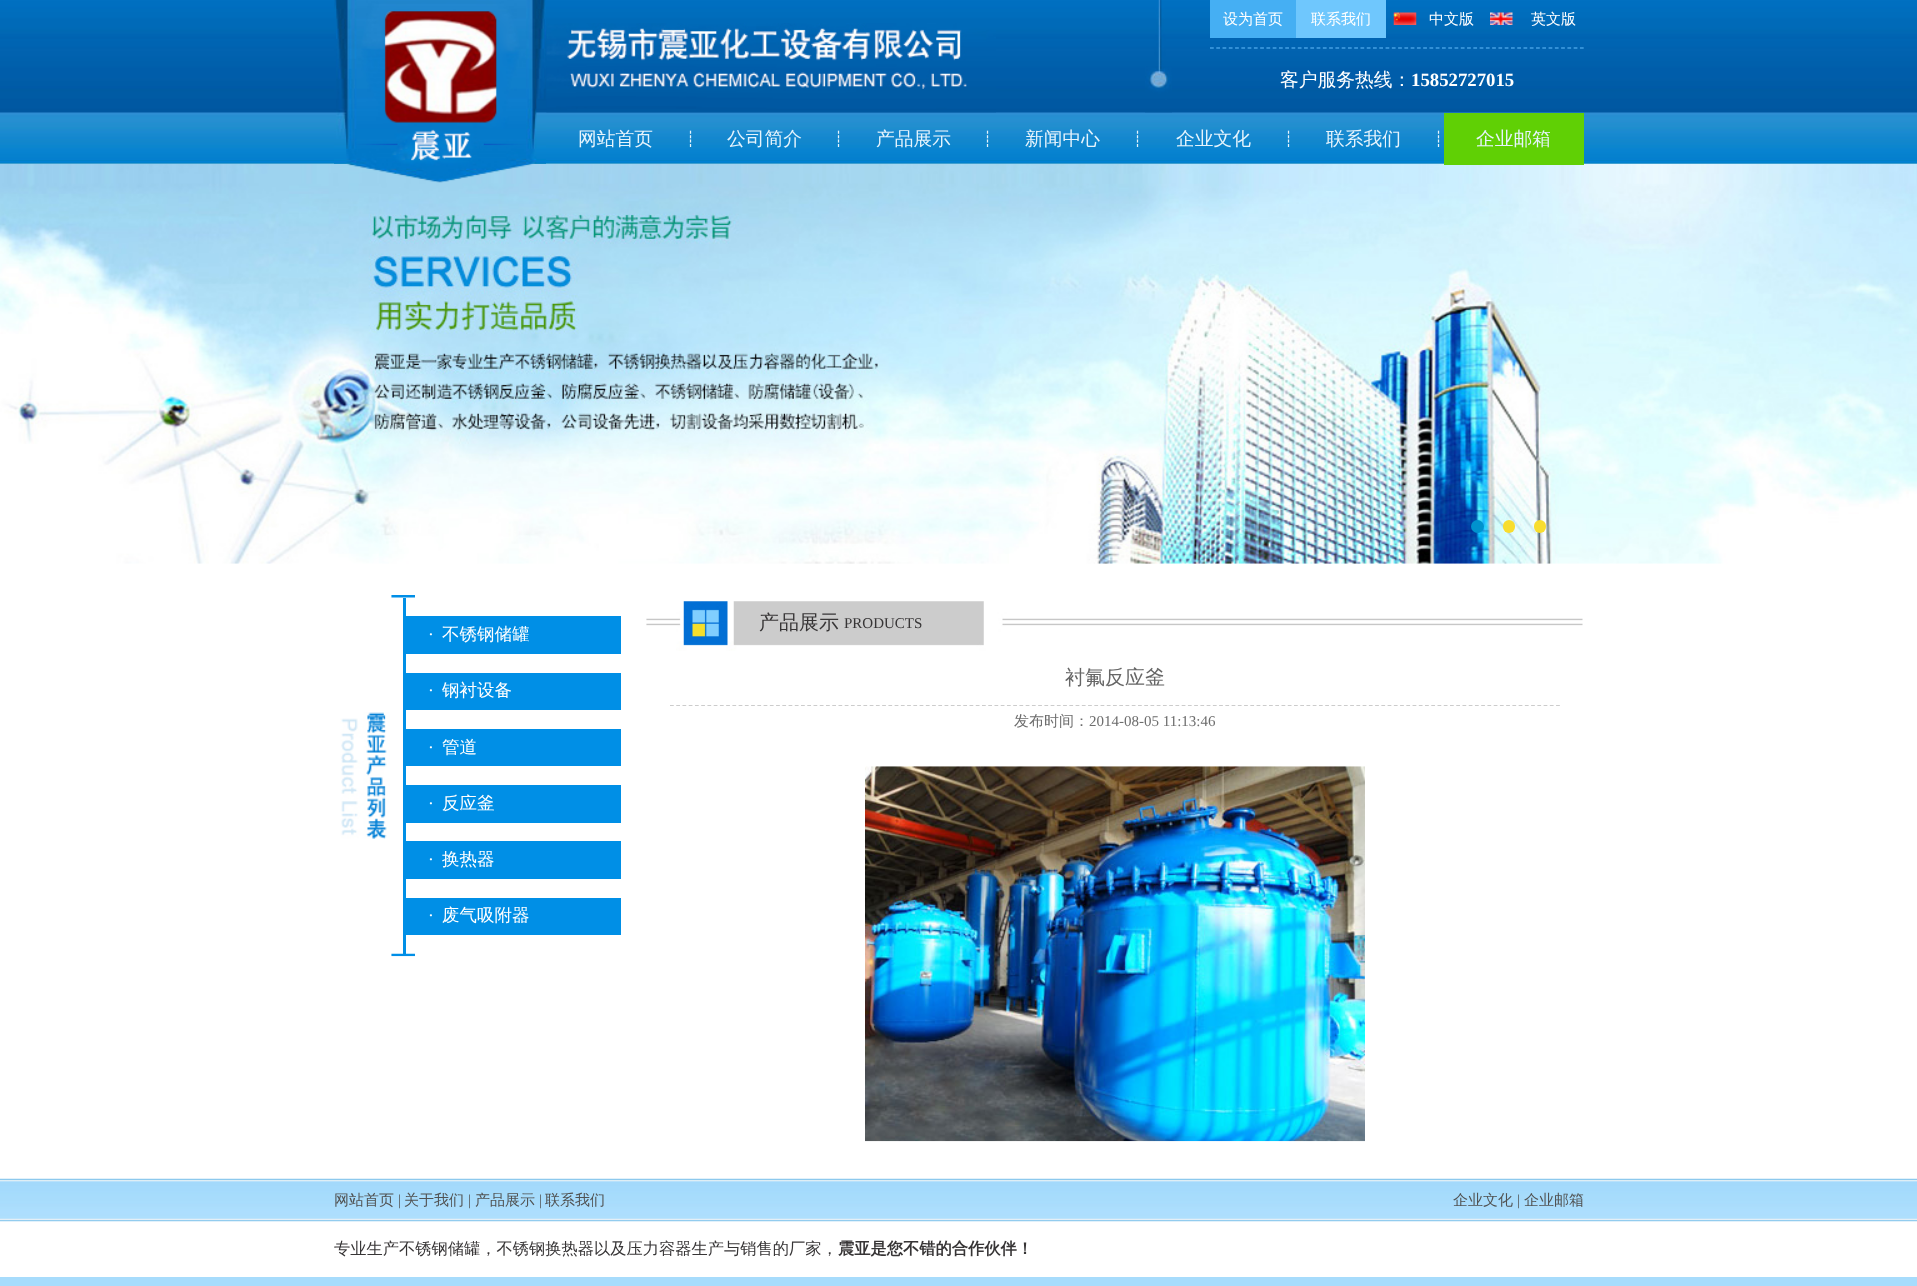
<svg xmlns="http://www.w3.org/2000/svg" width="1917" height="1286">
<rect width="100%" height="100%" fill="#fff"/>
<image x="0" y="163" width="1917" height="401" href="media/7.png"/>
<image x="0" y="0" width="1917" height="164" href="media/1.png"/>
<image x="334" y="0" width="212" height="183" href="media/2.png"/>
<image x="546" y="23" width="450" height="90" href="media/3.png"/>
<image x="1145" y="0" width="27" height="113" href="media/4.png"/>
<path d="M1210 48h374" fill="none" stroke="#65befd" stroke-width="1.2" stroke-dasharray="3.75 2.52"/>
<rect x="1210" width="86" height="38" fill="#45aff3"/>
<text x="1223" y="24" style="font-family:WenQuanYi Zen Hei;font-size:15px;font-weight:500;fill:#fff">设为首页</text>
<rect x="1296" width="90" height="38" fill="#6fc7fd"/>
<text x="1311" y="24" style="font-family:WenQuanYi Zen Hei;font-size:15px;font-weight:500;fill:#fff">联系我们</text>
<image x="1393" y="12" width="24" height="13" href="media/5.png"/>
<text x="1429" y="24" style="font-family:WenQuanYi Zen Hei;font-size:15px;font-weight:500;fill:#fff">中文版</text>
<image x="1490" y="12" width="23" height="13" href="media/6.png"/>
<text x="1531" y="24" style="font-family:WenQuanYi Zen Hei;font-size:15px;font-weight:500;fill:#fff">英文版</text>
<text x="1280" y="86" style="font-family:WenQuanYi Zen Hei;font-size:18.75px;font-weight:500;fill:#fff">客户服务热线：</text>
<text x="1411" y="86" style="font-family:Liberation Serif;font-size:18.75px;font-weight:bold;fill:#fff">15852727015</text>
<text x="578" y="145" style="font-family:WenQuanYi Zen Hei;font-size:18.75px;font-weight:500;fill:#e6f4fd">网站首页</text>
<text x="686" y="144" style="font-family:DejaVu Sans;font-size:15px;fill:#e6f4fd">┊</text>
<text x="727" y="145" style="font-family:WenQuanYi Zen Hei;font-size:18.75px;font-weight:500;fill:#e6f4fd">公司简介</text>
<text x="834" y="144" style="font-family:DejaVu Sans;font-size:15px;fill:#e6f4fd">┊</text>
<text x="876" y="145" style="font-family:WenQuanYi Zen Hei;font-size:18.75px;font-weight:500;fill:#e6f4fd">产品展示</text>
<text x="983" y="144" style="font-family:DejaVu Sans;font-size:15px;fill:#e6f4fd">┊</text>
<text x="1025" y="145" style="font-family:WenQuanYi Zen Hei;font-size:18.75px;font-weight:500;fill:#e6f4fd">新闻中心</text>
<text x="1133" y="144" style="font-family:DejaVu Sans;font-size:15px;fill:#e6f4fd">┊</text>
<text x="1176" y="145" style="font-family:WenQuanYi Zen Hei;font-size:18.75px;font-weight:500;fill:#e6f4fd">企业文化</text>
<text x="1284" y="144" style="font-family:DejaVu Sans;font-size:15px;fill:#e6f4fd">┊</text>
<text x="1326" y="145" style="font-family:WenQuanYi Zen Hei;font-size:18.75px;font-weight:500;fill:#e6f4fd">联系我们</text>
<text x="1434" y="144" style="font-family:DejaVu Sans;font-size:15px;fill:#e6f4fd">┊</text>
<rect x="1444" y="113" width="140" height="52" fill="#60d005"/>
<text x="1476" y="145" style="font-family:WenQuanYi Zen Hei;font-size:18.75px;font-weight:500;fill:#e6f4fd">企业邮箱</text>
<circle cx="1477.5" cy="526.5" r="6.5" fill="#0092ce"/>
<rect x="1503" y="520" width="12" height="13" rx="6" fill="#f8dd2e"/>
<rect x="1534" y="520" width="12" height="13" rx="6" fill="#f8dd2e"/>
<image x="340" y="712" width="50" height="127" href="media/8.png"/>
<image x="391" y="595" width="24" height="3" href="media/9.png"/>
<rect x="403" y="598" width="3" height="18" fill="#008fe6"/>
<rect x="403" y="616" width="218" height="38" fill="#008fe6"/>
<text x="428" y="640" style="font-family:Liberation Serif;font-size:17.5px;fill:#fff">·</text>
<text x="442" y="640" style="font-family:WenQuanYi Zen Hei;font-size:17.5px;font-weight:500;fill:#fff">不锈钢储罐</text>
<rect x="403" y="654" width="3" height="19" fill="#008fe6"/>
<rect x="403" y="673" width="218" height="37" fill="#008fe6"/>
<text x="428" y="696" style="font-family:Liberation Serif;font-size:17.5px;fill:#fff">·</text>
<text x="442" y="696" style="font-family:WenQuanYi Zen Hei;font-size:17.5px;font-weight:500;fill:#fff">钢衬设备</text>
<rect x="403" y="710" width="3" height="19" fill="#008fe6"/>
<rect x="403" y="729" width="218" height="37" fill="#008fe6"/>
<text x="428" y="753" style="font-family:Liberation Serif;font-size:17.5px;fill:#fff">·</text>
<text x="442" y="753" style="font-family:WenQuanYi Zen Hei;font-size:17.5px;font-weight:500;fill:#fff">管道</text>
<rect x="403" y="766" width="3" height="19" fill="#008fe6"/>
<rect x="403" y="785" width="218" height="38" fill="#008fe6"/>
<text x="428" y="809" style="font-family:Liberation Serif;font-size:17.5px;fill:#fff">·</text>
<text x="442" y="809" style="font-family:WenQuanYi Zen Hei;font-size:17.5px;font-weight:500;fill:#fff">反应釜</text>
<rect x="403" y="823" width="3" height="18" fill="#008fe6"/>
<rect x="403" y="841" width="218" height="38" fill="#008fe6"/>
<text x="428" y="865" style="font-family:Liberation Serif;font-size:17.5px;fill:#fff">·</text>
<text x="442" y="865" style="font-family:WenQuanYi Zen Hei;font-size:17.5px;font-weight:500;fill:#fff">换热器</text>
<rect x="403" y="879" width="3" height="19" fill="#008fe6"/>
<rect x="403" y="898" width="218" height="37" fill="#008fe6"/>
<text x="428" y="921" style="font-family:Liberation Serif;font-size:17.5px;fill:#fff">·</text>
<text x="442" y="921" style="font-family:WenQuanYi Zen Hei;font-size:17.5px;font-weight:500;fill:#fff">废气吸附器</text>
<rect x="403" y="935" width="3" height="19" fill="#008fe6"/>
<image x="391" y="953" width="24" height="4" href="media/10.png"/>
<image x="646" y="601" width="937" height="50" href="media/11.png"/>
<text x="759" y="629" style="font-family:WenQuanYi Zen Hei;font-size:20px;font-weight:500;fill:#373536">产品展示</text>
<text x="844" y="628" style="font-family:Liberation Serif;font-size:15px;fill:#373536">PRODUCTS</text>
<path d="M670 705.5h890" fill="none" stroke="#ccc" stroke-width="1.2" stroke-dasharray="3.75 2.49"/>
<text x="1065" y="684" style="font-family:WenQuanYi Zen Hei;font-size:20px;font-weight:500;fill:#666">衬氟反应釜</text>
<text x="1014" y="726" style="font-family:WenQuanYi Zen Hei;font-size:15px;font-weight:500;fill:#6d6d6d">发布时间：</text>
<text x="1089" y="726" style="font-family:Liberation Serif;font-size:15px;fill:#6d6d6d">2014-08-05 11:13:46</text>
<image x="865" y="766" width="500" height="376" href="media/12.png"/>
<image x="0" y="1178" width="1917" height="44" href="media/13.png"/>
<text x="334" y="1205" style="font-family:WenQuanYi Zen Hei;font-size:15px;font-weight:500;fill:#515252">网站首页</text>
<text x="398" y="1205" style="font-family:Liberation Serif;font-size:15px;fill:#515252">|</text>
<text x="404" y="1205" style="font-family:WenQuanYi Zen Hei;font-size:15px;font-weight:500;fill:#515252">关于我们</text>
<text x="468" y="1205" style="font-family:Liberation Serif;font-size:15px;fill:#515252">|</text>
<text x="475" y="1205" style="font-family:WenQuanYi Zen Hei;font-size:15px;font-weight:500;fill:#515252">产品展示</text>
<text x="539" y="1205" style="font-family:Liberation Serif;font-size:15px;fill:#515252">|</text>
<text x="545" y="1205" style="font-family:WenQuanYi Zen Hei;font-size:15px;font-weight:500;fill:#515252">联系我们</text>
<text x="1453" y="1205" style="font-family:WenQuanYi Zen Hei;font-size:15px;font-weight:500;fill:#515252">企业文化</text>
<text x="1517" y="1205" style="font-family:Liberation Serif;font-size:15px;fill:#515252">|</text>
<text x="1524" y="1205" style="font-family:WenQuanYi Zen Hei;font-size:15px;font-weight:500;fill:#515252">企业邮箱</text>
<text x="334" y="1254" style="font-family:WenQuanYi Zen Hei;font-size:16.25px;font-weight:500;fill:#373536">专业生产不锈钢储罐，不锈钢换热器以及压力容器生产与销售的厂家，</text>
<text x="838" y="1254" style="font-family:WenQuanYi Zen Hei;font-size:16.25px;font-weight:bold;fill:#373536">震亚是您不错的合作伙伴！</text>
<rect y="1277" width="1917" height="9" fill="#a7dcfc"/>
</svg>
